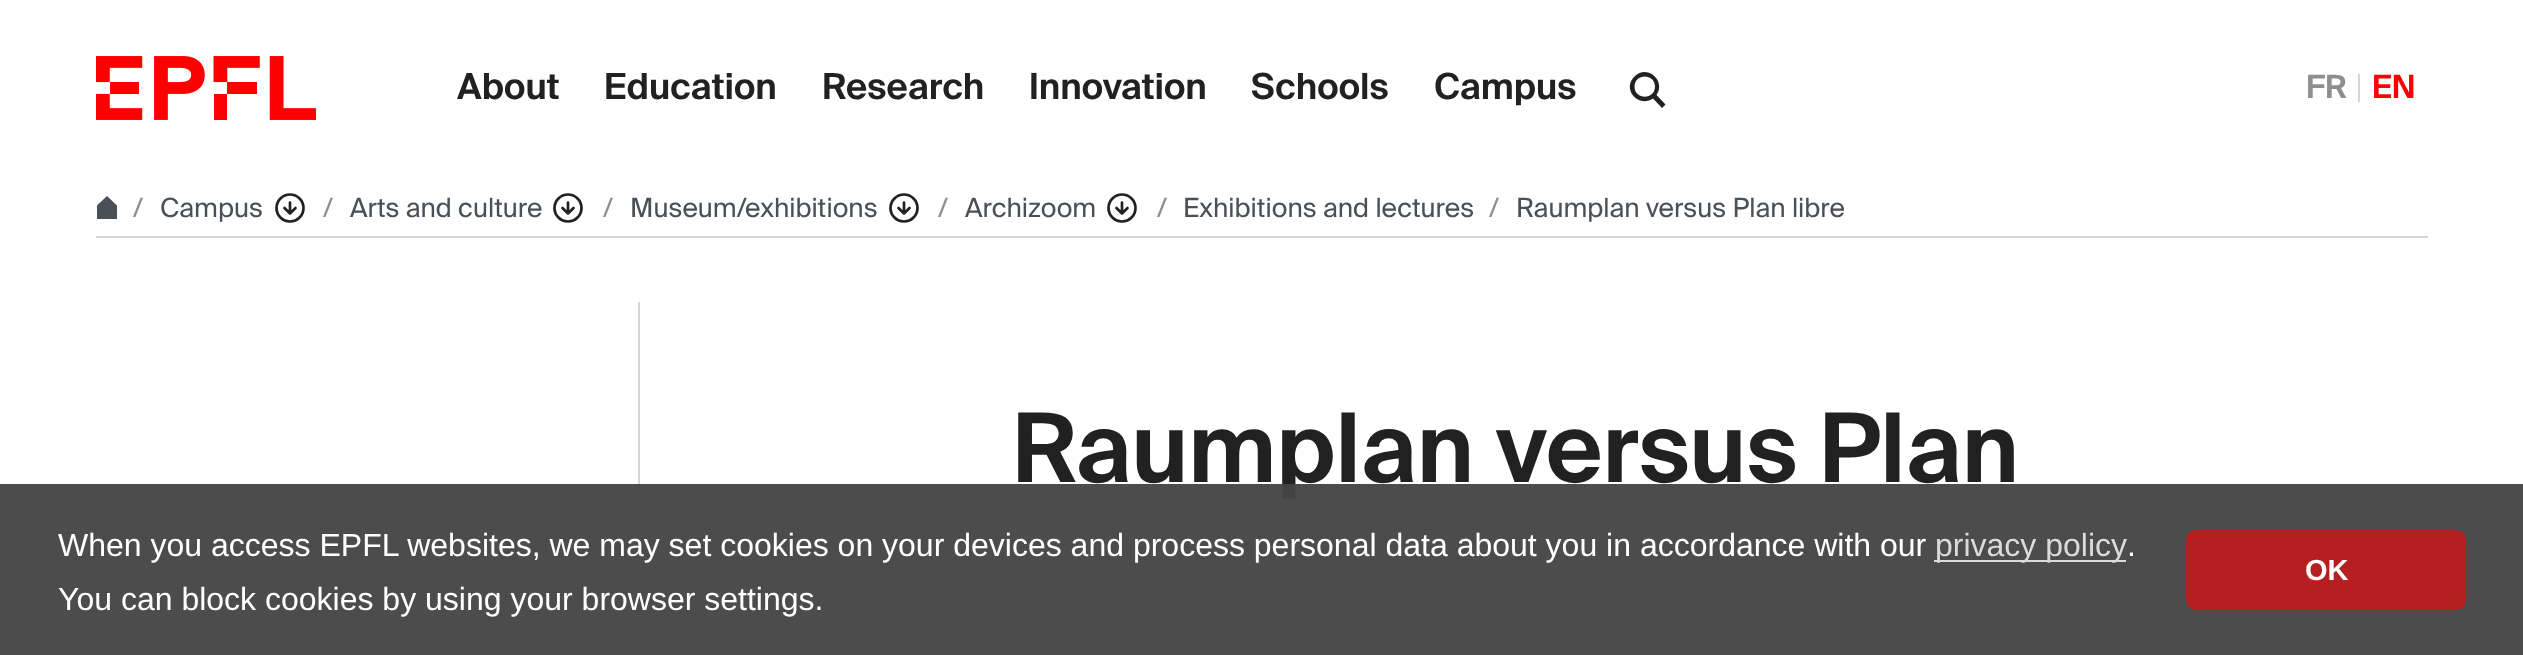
<svg xmlns="http://www.w3.org/2000/svg" width="2523" height="655">
<rect width="100%" height="100%" fill="#fff"/>
<image x="96" y="56" width="220" height="64" href="media/1.png"/>
<text x="457" y="99" style="font-family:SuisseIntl;font-size:36px;font-weight:600;fill:#212121">About</text>
<text x="604" y="99" style="font-family:SuisseIntl;font-size:36px;font-weight:600;fill:#212121">Education</text>
<text x="822" y="99" style="font-family:SuisseIntl;font-size:36px;font-weight:600;fill:#212121">Research</text>
<text x="1029" y="99" style="font-family:SuisseIntl;font-size:36px;font-weight:600;fill:#212121">Innovation</text>
<text x="1251" y="99" style="font-family:SuisseIntl;font-size:36px;font-weight:600;fill:#212121">Schools</text>
<text x="1434" y="99" style="font-family:SuisseIntl;font-size:36px;font-weight:600;fill:#212121">Campus</text>
<path d="M1665.5 104.5l-9-9.5c10-14-9.5-31.5-22-18.5c-13 12.5 4 32 18.5 22l9 9.5zm-31-18c0-13.5 20.5-13.5 20.5 0c0 13.5-20.5 13.5-20.5 0z" fill="#212121"/>
<text x="2306" y="98" style="font-family:SuisseIntl;font-size:32px;font-weight:600;fill:#8e8e8e">FR</text>
<rect x="2358" y="74" width="2" height="28" fill="#d5d5d5"/>
<text x="2372" y="98" style="font-family:SuisseIntl;font-size:32px;font-weight:600;fill:#f00">EN</text>
<rect x="96" y="236" width="2332" height="2" fill="#d5d5d5"/>
<path d="M97 205.5l10-9.5l10 9.5v13.5h-20z" fill="#495057" fill-rule="evenodd"/>
<text x="133" y="217" style="font-family:SuisseIntl;font-size:26.5px;fill:#8e8e8e">/</text>
<text x="160" y="217" style="font-family:SuisseIntl;font-size:26.5px;fill:#495057">Campus</text>
<circle cx="290" cy="208" r="13.5" fill="none" stroke="#212121" stroke-width="2.7"/>
<path d="M284.5 208l5.5 5.5l5.5-5.5m-5.5-5.5v11" fill="none" stroke="#212121" stroke-width="2.7" stroke-linecap="round" stroke-linejoin="round"/>
<text x="323" y="217" style="font-family:SuisseIntl;font-size:26.5px;fill:#8e8e8e">/</text>
<text x="350" y="217" style="font-family:SuisseIntl;font-size:26.5px;fill:#495057">Arts and culture</text>
<circle cx="568" cy="208" r="13.5" fill="none" stroke="#212121" stroke-width="2.7"/>
<path d="M562.5 208l5.5 5.5l5.5-5.5m-5.5-5.5v11" fill="none" stroke="#212121" stroke-width="2.7" stroke-linecap="round" stroke-linejoin="round"/>
<text x="603" y="217" style="font-family:SuisseIntl;font-size:26.5px;fill:#8e8e8e">/</text>
<text x="630" y="217" style="font-family:SuisseIntl;font-size:26.5px;fill:#495057">Museum/exhibitions</text>
<circle cx="904" cy="208" r="13.5" fill="none" stroke="#212121" stroke-width="2.7"/>
<path d="M898.5 208l5.5 5.5l5.5-5.5m-5.5-5.5v11" fill="none" stroke="#212121" stroke-width="2.7" stroke-linecap="round" stroke-linejoin="round"/>
<text x="938" y="217" style="font-family:SuisseIntl;font-size:26.5px;fill:#8e8e8e">/</text>
<text x="965" y="217" style="font-family:SuisseIntl;font-size:26.5px;fill:#495057">Archizoom</text>
<circle cx="1122" cy="208" r="13.5" fill="none" stroke="#212121" stroke-width="2.7"/>
<path d="M1116.5 208l5.5 5.5l5.5-5.5m-5.5-5.5v11" fill="none" stroke="#212121" stroke-width="2.7" stroke-linecap="round" stroke-linejoin="round"/>
<text x="1157" y="217" style="font-family:SuisseIntl;font-size:26.5px;fill:#8e8e8e">/</text>
<text x="1183" y="217" style="font-family:SuisseIntl;font-size:26.5px;fill:#495057">Exhibitions and lectures</text>
<text x="1489" y="217" style="font-family:SuisseIntl;font-size:26.5px;fill:#8e8e8e">/</text>
<text x="1516" y="217" style="font-family:SuisseIntl;font-size:26.5px;fill:#495057">Raumplan versus Plan libre</text>
<rect x="638" y="302" width="2" height="353" fill="#d5d5d5"/>
<text x="1012" y="482" style="font-family:SuisseIntl;font-size:96px;font-weight:600;fill:#212121">Raumplan versus Plan</text>
<rect y="484" width="2523" height="171" fill="#454545f5"/>
<text x="58" y="556" style="font-family:Liberation Sans;font-size:32px;fill:#fff">When you access EPFL websites, we may set cookies on your devices and process personal data about you in accordance with our</text>
<rect x="1934" y="560" width="192" height="2" fill="#dbdbdb"/>
<text x="1935" y="556" style="font-family:Liberation Sans;font-size:32px;fill:#dbdbdb">privacy policy</text>
<text x="2127" y="556" style="font-family:Liberation Sans;font-size:32px;fill:#fff">.</text>
<text x="58" y="610" style="font-family:Liberation Sans;font-size:32px;fill:#fff">You can block cookies by using your browser settings.</text>
<rect x="2186" y="530" width="280" height="80" rx="10" fill="#b51f1f"/>
<text x="2305" y="580" style="font-family:Liberation Sans;font-size:29px;font-weight:bold;fill:#fff">OK</text>
</svg>
